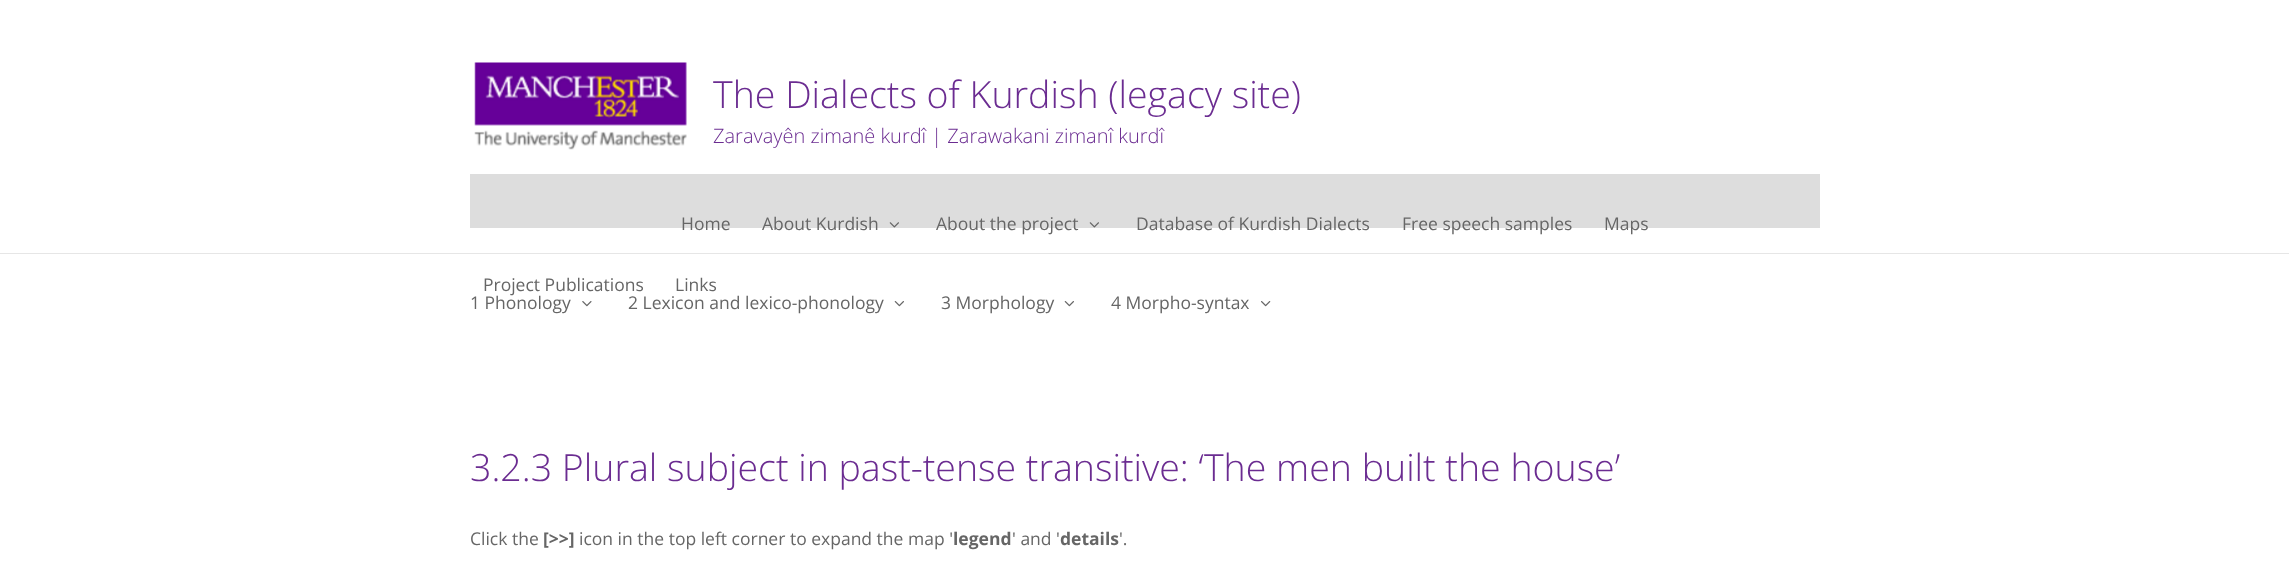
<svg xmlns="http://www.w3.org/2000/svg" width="2289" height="585">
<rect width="100%" height="100%" fill="#fff"/>
<rect y="253" width="2289" height="1" fill="#e6e6e6"/>
<image x="474" y="62" width="213" height="88" href="media/1.png"/>
<text x="713" y="108" style="font-family:Open Sans;font-size:37.5px;font-weight:300;fill:#6b2c91">The Dialects of Kurdish (legacy site)</text>
<text x="713" y="143" style="font-family:Open Sans;font-size:20px;font-weight:300;fill:#6b2c91">Zaravayên zimanê kurdî | Zarawakani zimanî kurdî</text>
<rect x="470" y="174" width="1350" height="54" fill="#ddd"/>
<text x="681" y="230" style="font-family:Open Sans;font-size:17.5px;fill:#666">Home</text>
<text x="762" y="230" style="font-family:Open Sans;font-size:17.5px;fill:#666">About Kurdish</text>
<image x="889" y="222" width="10" height="6" href="media/2.png"/>
<text x="936" y="230" style="font-family:Open Sans;font-size:17.5px;fill:#666">About the project</text>
<image x="1089" y="222" width="10" height="6" href="media/2.png"/>
<text x="1136" y="230" style="font-family:Open Sans;font-size:17.5px;fill:#666">Database of Kurdish Dialects</text>
<text x="1402" y="230" style="font-family:Open Sans;font-size:17.5px;fill:#666">Free speech samples</text>
<text x="1604" y="230" style="font-family:Open Sans;font-size:17.5px;fill:#666">Maps</text>
<text x="483" y="291" style="font-family:Open Sans;font-size:17.5px;fill:#666">Project Publications</text>
<text x="675" y="291" style="font-family:Open Sans;font-size:17.5px;fill:#666">Links</text>
<text x="470" y="309" style="font-family:Open Sans;font-size:17.5px;fill:#666">1 Phonology</text>
<image x="582" y="301" width="10" height="6" href="media/3.png"/>
<text x="628" y="309" style="font-family:Open Sans;font-size:17.5px;fill:#666">2 Lexicon and lexico-phonology</text>
<image x="894" y="301" width="10" height="6" href="media/4.png"/>
<text x="941" y="309" style="font-family:Open Sans;font-size:17.5px;fill:#666">3 Morphology</text>
<image x="1064" y="301" width="10" height="6" href="media/4.png"/>
<text x="1111" y="309" style="font-family:Open Sans;font-size:17.5px;fill:#666">4 Morpho-syntax</text>
<image x="1261" y="301" width="10" height="6" href="media/5.png"/>
<text x="470" y="481" style="font-family:Open Sans;font-size:37.5px;font-weight:300;fill:#6b2c91">3.2.3 Plural subject in past-tense transitive: ‘The men built the house’</text>
<text x="470" y="545" style="font-family:Open Sans;font-size:17.5px;fill:#666">Click the</text>
<text x="543" y="545" style="font-family:Open Sans;font-size:17.5px;font-weight:bold;fill:#666">[&gt;&gt;]</text>
<text x="579" y="545" style="font-family:Open Sans;font-size:17.5px;fill:#666">icon in the top left corner to expand the map '</text>
<text x="953" y="545" style="font-family:Open Sans;font-size:17.5px;font-weight:bold;fill:#666">legend</text>
<text x="1012" y="545" style="font-family:Open Sans;font-size:17.5px;fill:#666">' and '</text>
<text x="1060" y="545" style="font-family:Open Sans;font-size:17.5px;font-weight:bold;fill:#666">details</text>
<text x="1119" y="545" style="font-family:Open Sans;font-size:17.5px;fill:#666">'.</text>
</svg>
